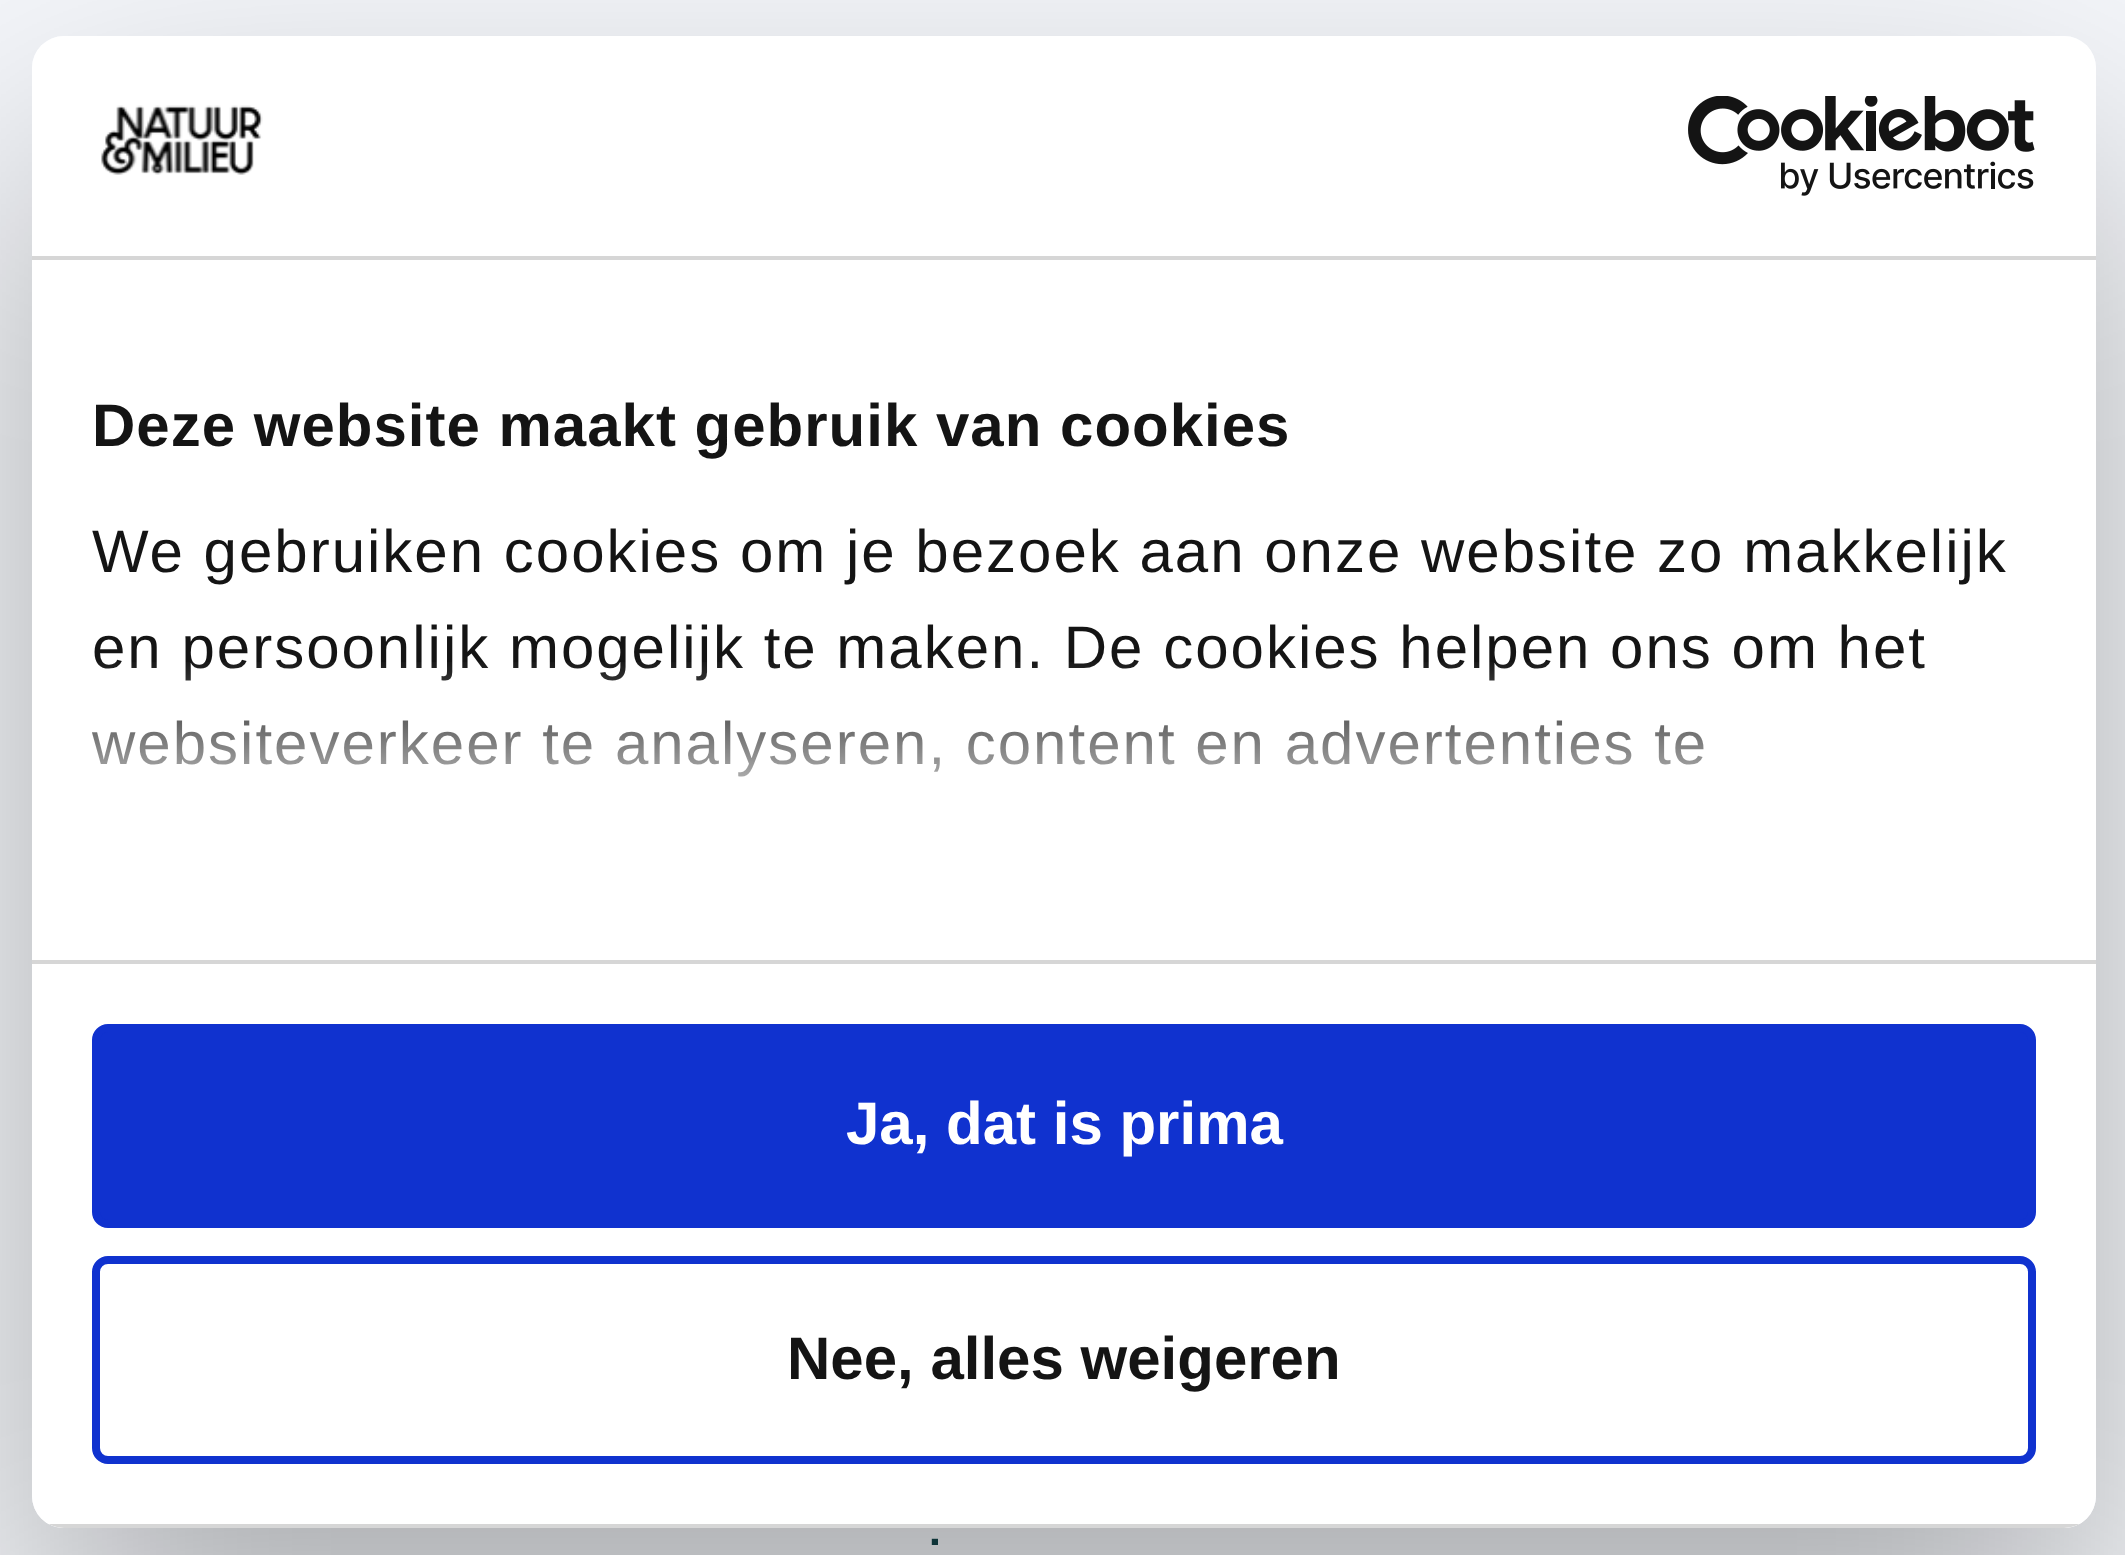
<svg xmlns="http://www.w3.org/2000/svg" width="2125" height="1555">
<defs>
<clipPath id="clip1"><path d="M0 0h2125v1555h-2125zm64 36h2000c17.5 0 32 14.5 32 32v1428c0 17.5-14.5 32-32 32h-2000c-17.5 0-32-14.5-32-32v-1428c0-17.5 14.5-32 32-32z" clip-rule="evenodd"/></clipPath>
<linearGradient id="g1" gradientUnits="userSpaceOnUse" x1="1038" y1="958" x2="1038" y2="658"><stop offset="0" stop-color="#fff"/><stop offset="0.5" stop-color="#fff" stop-opacity="0.8"/><stop offset="1" stop-color="#fff" stop-opacity="0"/></linearGradient>
<clipPath id="clip2"><rect x="32" y="36" width="2064" height="1492" rx="32"/></clipPath>
</defs>
<rect width="100%" height="100%" fill="#f4f6fa"/>
<g clip-path="url(#clip1)">
<rect x="32" y="164" width="2064" height="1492" rx="32" fill="#0000004d" filter="blur(136px)"/>
</g>
<rect x="32" y="36" width="2064" height="1492" rx="32" fill="#fff"/>
<rect x="32" y="256" width="2064" height="4" fill="#d6d6d6"/>
<image x="101" y="105" width="162" height="70" href="media/1.png"/>
<image x="1688" y="96" width="347" height="100" href="media/2.png"/>
<rect x="32" y="960" width="2064" height="4" fill="#d6d6d6"/>
<text x="92" y="446" style="font-family:Liberation Sans;font-size:60px;font-weight:bold;letter-spacing:1px;fill:#141414">Deze website maakt gebruik van cookies</text>
<text x="92" y="572" style="font-family:Liberation Sans;font-size:60px;letter-spacing:2px;fill:#141414">We gebruiken cookies om je bezoek aan onze website zo makkelijk</text>
<text x="92" y="668" style="font-family:Liberation Sans;font-size:60px;letter-spacing:2px;fill:#141414">en persoonlijk mogelijk te maken. De cookies helpen ons om het</text>
<text x="92" y="764" style="font-family:Liberation Sans;font-size:60px;letter-spacing:2px;fill:#141414">websiteverkeer te analyseren, content en advertenties te</text>
<rect x="92" y="662" width="1833" height="115" fill="url(#g1)"/>
<g clip-path="url(#clip2)">
<rect x="48" y="1524" width="2032" height="4" fill="#d6d6d6"/>
</g>
<rect x="96" y="1028" width="1936" height="196" rx="12" fill="#1032cf" stroke="#1032cf" stroke-width="8"/>
<text x="846" y="1144" style="font-family:Liberation Sans;font-size:60px;font-weight:bold;fill:#fff">Ja, dat is prima</text>
<rect x="96" y="1260" width="1936" height="200" rx="12" fill="none" stroke="#1032cf" stroke-width="8"/>
<text x="787" y="1379" style="font-family:Liberation Sans;font-size:60px;font-weight:bold;fill:#141414">Nee, alles weigeren</text>
<text x="929" y="1545" style="font-family:Helvetica Neue;font-size:56px;fill:#0e3438">.</text>
</svg>
